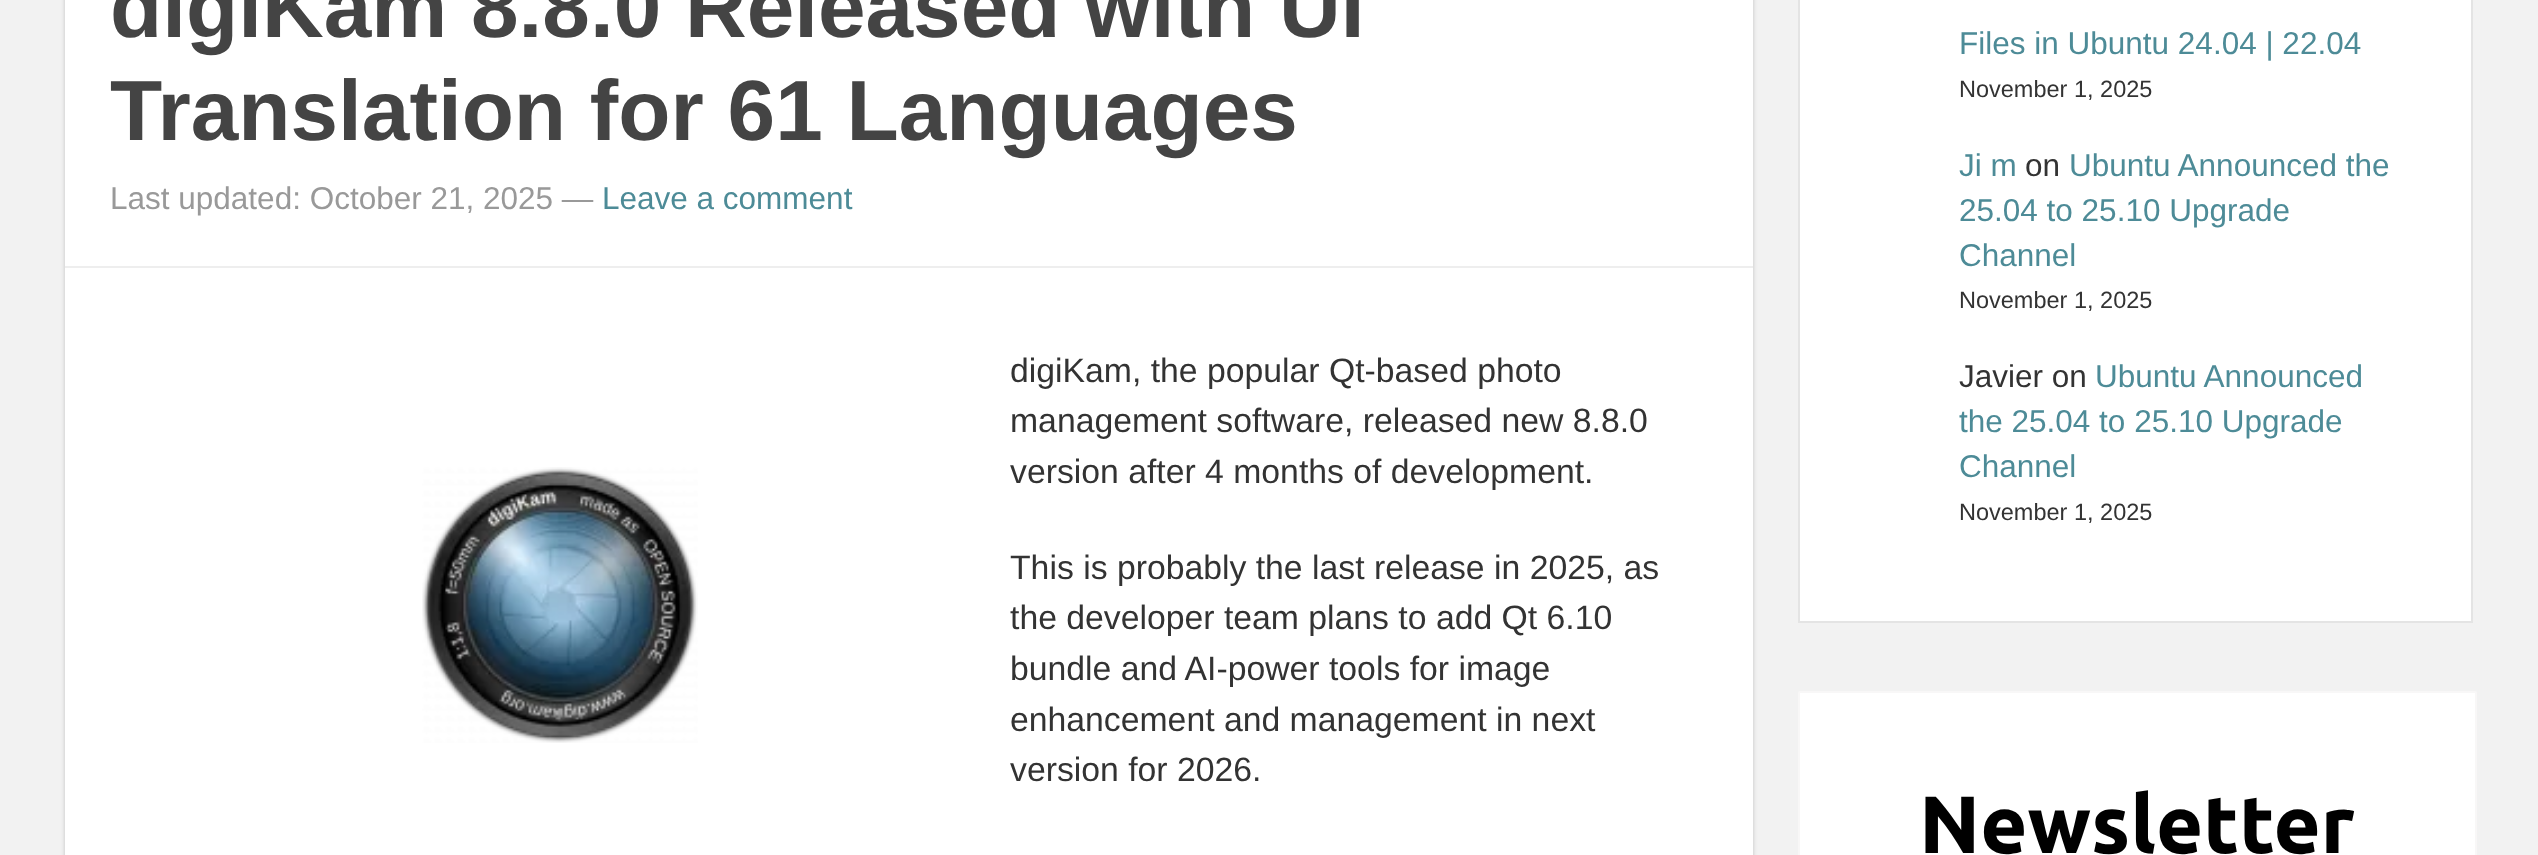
<svg xmlns="http://www.w3.org/2000/svg" width="2538" height="855">
<rect width="100%" height="100%" fill="#f2f2f2"/>
<rect x="65" y="-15" width="1688" height="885" rx="9" fill="#00000033" filter="blur(2px)"/>
<rect x="65" width="1688" height="855" fill="#fff"/>
<rect x="65" y="266" width="1688" height="2" fill="#eee"/>
<text x="110" y="37" style="font-family:Liberation Sans;font-size:85.5px;font-weight:bold;fill:#444">digiKam 8.8.0 Released with UI</text>
<text x="110" y="140" style="font-family:Liberation Sans;font-size:85.5px;font-weight:bold;fill:#444">Translation for 61 Languages</text>
<text x="110" y="209" style="font-family:Liberation Sans;font-size:31.5px;fill:#999">Last updated: October 21, 2025 —</text>
<text x="602" y="209" style="font-family:Liberation Sans;font-size:31.5px;fill:#4d8b97">Leave a comment</text>
<text x="1010" y="382" style="font-family:Liberation Sans;font-size:33.75px;fill:#333">digiKam, the popular Qt-based photo</text>
<text x="1010" y="432" style="font-family:Liberation Sans;font-size:33.75px;fill:#333">management software, released new 8.8.0</text>
<text x="1010" y="483" style="font-family:Liberation Sans;font-size:33.75px;fill:#333">version after 4 months of development.</text>
<image x="422" y="467" width="276" height="276" href="media/1.png"/>
<text x="1010" y="579" style="font-family:Liberation Sans;font-size:33.75px;fill:#333">This is probably the last release in 2025, as</text>
<text x="1010" y="629" style="font-family:Liberation Sans;font-size:33.75px;fill:#333">the developer team plans to add Qt 6.10</text>
<text x="1010" y="680" style="font-family:Liberation Sans;font-size:33.75px;fill:#333">bundle and AI-power tools for image</text>
<text x="1010" y="731" style="font-family:Liberation Sans;font-size:33.75px;fill:#333">enhancement and management in next</text>
<text x="1010" y="781" style="font-family:Liberation Sans;font-size:33.75px;fill:#333">version for 2026.</text>
<rect x="1799" y="-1" width="673" height="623" fill="#fff" stroke="#e4e4e4" stroke-width="2"/>
<text x="1959" y="54" style="font-family:Liberation Sans;font-size:31.5px;fill:#4d8b97">Files in Ubuntu 24.04 | 22.04</text>
<text x="1959" y="97" style="font-family:Liberation Sans;font-size:23.5px;fill:#333">November 1, 2025</text>
<text x="1959" y="176" style="font-family:Liberation Sans;font-size:31.5px;fill:#4d8b97">Ji m</text>
<text x="2025" y="176" style="font-family:Liberation Sans;font-size:31.5px;fill:#333">on</text>
<text x="2069" y="176" style="font-family:Liberation Sans;font-size:31.5px;fill:#4d8b97">Ubuntu Announced the</text>
<text x="1959" y="221" style="font-family:Liberation Sans;font-size:31.5px;fill:#4d8b97">25.04 to 25.10 Upgrade</text>
<text x="1959" y="266" style="font-family:Liberation Sans;font-size:31.5px;fill:#4d8b97">Channel</text>
<text x="1959" y="308" style="font-family:Liberation Sans;font-size:23.5px;fill:#333">November 1, 2025</text>
<text x="1959" y="387" style="font-family:Liberation Sans;font-size:31.5px;fill:#333">Javier on</text>
<text x="2095" y="387" style="font-family:Liberation Sans;font-size:31.5px;fill:#4d8b97">Ubuntu Announced</text>
<text x="1959" y="432" style="font-family:Liberation Sans;font-size:31.5px;fill:#4d8b97">the 25.04 to 25.10 Upgrade</text>
<text x="1959" y="477" style="font-family:Liberation Sans;font-size:31.5px;fill:#4d8b97">Channel</text>
<text x="1959" y="520" style="font-family:Liberation Sans;font-size:23.5px;fill:#333">November 1, 2025</text>
<rect x="1799" y="692" width="677" height="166" rx="1" fill="#fff" stroke="#f8f7f7" stroke-width="2"/>
<text x="1919" y="853" style="font-family:Ubuntu;font-size:81px;font-weight:bold;fill:#000">Newsletter</text>
</svg>
